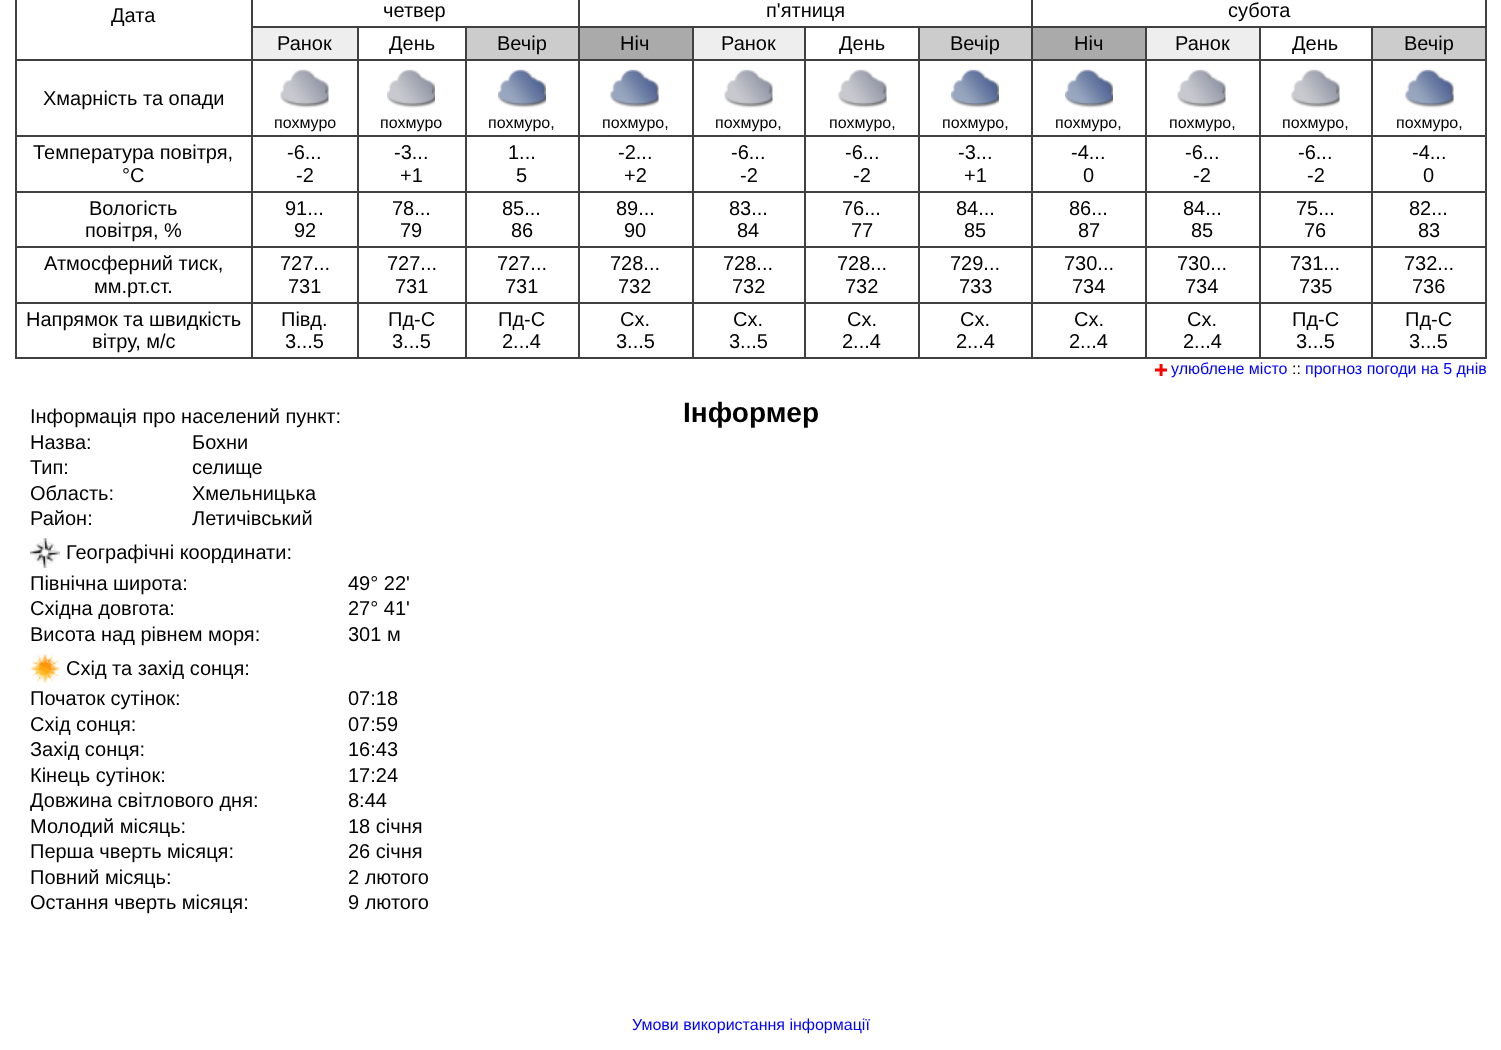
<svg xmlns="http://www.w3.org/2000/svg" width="1501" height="1050">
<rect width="100%" height="100%" fill="#fff"/>
<text x="111" y="22" style="font-family:Liberation Sans;font-size:20px;fill:#000">Дата</text>
<text x="383" y="17" style="font-family:Liberation Sans;font-size:20px;fill:#000">четвер</text>
<rect x="1371" y="26" width="116" height="2" fill="#404040"/>
<rect x="1371" y="59" width="116" height="2" fill="#404040"/>
<rect x="1371" y="135" width="116" height="2" fill="#404040"/>
<rect x="1371" y="191" width="116" height="2" fill="#404040"/>
<rect x="1371" y="246" width="116" height="2" fill="#404040"/>
<rect x="1371" y="302" width="116" height="2" fill="#404040"/>
<rect x="1485" y="302" width="2" height="57" fill="#404040"/>
<rect x="1371" y="357" width="116" height="2" fill="#404040"/>
<rect x="1371" y="302" width="2" height="57" fill="#404040"/>
<rect x="1259" y="302" width="114" height="2" fill="#404040"/>
<rect x="1371" y="246" width="2" height="57" fill="#404040"/>
<rect x="1259" y="246" width="114" height="2" fill="#404040"/>
<rect x="1371" y="191" width="2" height="57" fill="#404040"/>
<rect x="1259" y="191" width="114" height="2" fill="#404040"/>
<rect x="1371" y="135" width="2" height="57" fill="#404040"/>
<rect x="1259" y="135" width="114" height="2" fill="#404040"/>
<rect x="1371" y="59" width="2" height="78" fill="#404040"/>
<rect x="1259" y="59" width="114" height="2" fill="#404040"/>
<rect x="1371" y="26" width="2" height="34" fill="#404040"/>
<rect x="1259" y="26" width="114" height="2" fill="#404040"/>
<rect x="1259" y="357" width="114" height="2" fill="#404040"/>
<rect x="1259" y="302" width="2" height="57" fill="#404040"/>
<rect x="1145" y="302" width="115" height="2" fill="#404040"/>
<rect x="1259" y="246" width="2" height="57" fill="#404040"/>
<rect x="1145" y="246" width="115" height="2" fill="#404040"/>
<rect x="1259" y="191" width="2" height="57" fill="#404040"/>
<rect x="1145" y="191" width="115" height="2" fill="#404040"/>
<rect x="1259" y="135" width="2" height="57" fill="#404040"/>
<rect x="1145" y="135" width="115" height="2" fill="#404040"/>
<rect x="1259" y="59" width="2" height="78" fill="#404040"/>
<rect x="1145" y="59" width="115" height="2" fill="#404040"/>
<rect x="1259" y="26" width="2" height="34" fill="#404040"/>
<rect x="1145" y="26" width="115" height="2" fill="#404040"/>
<rect x="1145" y="357" width="115" height="2" fill="#404040"/>
<rect x="1145" y="302" width="2" height="57" fill="#404040"/>
<rect x="1031" y="302" width="115" height="2" fill="#404040"/>
<rect x="1145" y="246" width="2" height="57" fill="#404040"/>
<rect x="1031" y="246" width="115" height="2" fill="#404040"/>
<rect x="1145" y="191" width="2" height="57" fill="#404040"/>
<rect x="1031" y="191" width="115" height="2" fill="#404040"/>
<rect x="1145" y="135" width="2" height="57" fill="#404040"/>
<rect x="1031" y="135" width="115" height="2" fill="#404040"/>
<rect x="1145" y="59" width="2" height="78" fill="#404040"/>
<rect x="1031" y="59" width="115" height="2" fill="#404040"/>
<rect x="1145" y="26" width="2" height="34" fill="#404040"/>
<rect x="1031" y="26" width="115" height="2" fill="#404040"/>
<rect x="1031" y="357" width="115" height="2" fill="#404040"/>
<rect x="1031" y="302" width="2" height="57" fill="#404040"/>
<rect x="918" y="302" width="114" height="2" fill="#404040"/>
<rect x="1031" y="246" width="2" height="57" fill="#404040"/>
<rect x="918" y="246" width="114" height="2" fill="#404040"/>
<rect x="1031" y="191" width="2" height="57" fill="#404040"/>
<rect x="918" y="191" width="114" height="2" fill="#404040"/>
<rect x="1031" y="135" width="2" height="57" fill="#404040"/>
<rect x="918" y="135" width="114" height="2" fill="#404040"/>
<rect x="1031" y="59" width="2" height="78" fill="#404040"/>
<rect x="918" y="59" width="114" height="2" fill="#404040"/>
<rect x="1031" y="26" width="2" height="34" fill="#404040"/>
<rect x="918" y="26" width="114" height="2" fill="#404040"/>
<rect x="918" y="357" width="114" height="2" fill="#404040"/>
<rect x="918" y="302" width="2" height="57" fill="#404040"/>
<rect x="804" y="302" width="116" height="2" fill="#404040"/>
<rect x="918" y="246" width="2" height="57" fill="#404040"/>
<rect x="804" y="246" width="116" height="2" fill="#404040"/>
<rect x="918" y="191" width="2" height="57" fill="#404040"/>
<rect x="804" y="191" width="116" height="2" fill="#404040"/>
<rect x="918" y="135" width="2" height="57" fill="#404040"/>
<rect x="804" y="135" width="116" height="2" fill="#404040"/>
<rect x="918" y="59" width="2" height="78" fill="#404040"/>
<rect x="804" y="59" width="116" height="2" fill="#404040"/>
<rect x="918" y="26" width="2" height="34" fill="#404040"/>
<rect x="804" y="26" width="116" height="2" fill="#404040"/>
<rect x="804" y="357" width="116" height="2" fill="#404040"/>
<rect x="804" y="302" width="2" height="57" fill="#404040"/>
<rect x="692" y="302" width="114" height="2" fill="#404040"/>
<rect x="804" y="246" width="2" height="57" fill="#404040"/>
<rect x="692" y="246" width="114" height="2" fill="#404040"/>
<rect x="804" y="191" width="2" height="57" fill="#404040"/>
<rect x="692" y="191" width="114" height="2" fill="#404040"/>
<rect x="804" y="135" width="2" height="57" fill="#404040"/>
<rect x="692" y="135" width="114" height="2" fill="#404040"/>
<rect x="804" y="59" width="2" height="78" fill="#404040"/>
<rect x="692" y="59" width="114" height="2" fill="#404040"/>
<rect x="804" y="26" width="2" height="34" fill="#404040"/>
<rect x="692" y="26" width="114" height="2" fill="#404040"/>
<rect x="692" y="357" width="114" height="2" fill="#404040"/>
<rect x="692" y="302" width="2" height="57" fill="#404040"/>
<rect x="578" y="302" width="115" height="2" fill="#404040"/>
<rect x="692" y="246" width="2" height="57" fill="#404040"/>
<rect x="578" y="246" width="115" height="2" fill="#404040"/>
<rect x="692" y="191" width="2" height="57" fill="#404040"/>
<rect x="578" y="191" width="115" height="2" fill="#404040"/>
<rect x="692" y="135" width="2" height="57" fill="#404040"/>
<rect x="578" y="135" width="115" height="2" fill="#404040"/>
<rect x="692" y="59" width="2" height="78" fill="#404040"/>
<rect x="578" y="59" width="115" height="2" fill="#404040"/>
<rect x="692" y="26" width="2" height="34" fill="#404040"/>
<rect x="578" y="26" width="115" height="2" fill="#404040"/>
<rect x="578" y="357" width="115" height="2" fill="#404040"/>
<rect x="578" y="302" width="2" height="57" fill="#404040"/>
<rect x="465" y="302" width="114" height="2" fill="#404040"/>
<rect x="578" y="246" width="2" height="57" fill="#404040"/>
<rect x="465" y="246" width="114" height="2" fill="#404040"/>
<rect x="578" y="191" width="2" height="57" fill="#404040"/>
<rect x="465" y="191" width="114" height="2" fill="#404040"/>
<rect x="578" y="135" width="2" height="57" fill="#404040"/>
<rect x="465" y="135" width="114" height="2" fill="#404040"/>
<rect x="578" y="59" width="2" height="78" fill="#404040"/>
<rect x="465" y="59" width="114" height="2" fill="#404040"/>
<rect x="578" y="26" width="2" height="34" fill="#404040"/>
<rect x="465" y="26" width="114" height="2" fill="#404040"/>
<rect x="578" width="2" height="27" fill="#404040"/>
<text x="766" y="17" style="font-family:Liberation Sans;font-size:20px;fill:#000">п'ятниця</text>
<rect x="1031" width="2" height="27" fill="#404040"/>
<text x="1228" y="17" style="font-family:Liberation Sans;font-size:20px;fill:#000">субота</text>
<rect x="253" y="28" width="104" height="31" fill="#eee"/>
<rect x="465" y="357" width="114" height="2" fill="#404040"/>
<rect x="465" y="302" width="2" height="57" fill="#404040"/>
<rect x="357" y="302" width="110" height="2" fill="#404040"/>
<rect x="465" y="246" width="2" height="57" fill="#404040"/>
<rect x="357" y="246" width="110" height="2" fill="#404040"/>
<rect x="465" y="191" width="2" height="57" fill="#404040"/>
<rect x="357" y="191" width="110" height="2" fill="#404040"/>
<rect x="465" y="135" width="2" height="57" fill="#404040"/>
<rect x="357" y="135" width="110" height="2" fill="#404040"/>
<rect x="465" y="59" width="2" height="78" fill="#404040"/>
<rect x="357" y="59" width="110" height="2" fill="#404040"/>
<rect x="465" y="26" width="2" height="34" fill="#404040"/>
<rect x="357" y="26" width="110" height="2" fill="#404040"/>
<rect x="357" y="357" width="110" height="2" fill="#404040"/>
<rect x="357" y="302" width="2" height="57" fill="#404040"/>
<rect x="251" y="302" width="108" height="2" fill="#404040"/>
<rect x="357" y="246" width="2" height="57" fill="#404040"/>
<rect x="251" y="246" width="108" height="2" fill="#404040"/>
<rect x="357" y="191" width="2" height="57" fill="#404040"/>
<rect x="251" y="191" width="108" height="2" fill="#404040"/>
<rect x="357" y="135" width="2" height="57" fill="#404040"/>
<rect x="251" y="135" width="108" height="2" fill="#404040"/>
<rect x="357" y="59" width="2" height="78" fill="#404040"/>
<rect x="251" y="59" width="108" height="2" fill="#404040"/>
<rect x="357" y="26" width="2" height="34" fill="#404040"/>
<rect x="251" y="26" width="108" height="2" fill="#404040"/>
<rect x="251" y="357" width="108" height="2" fill="#404040"/>
<rect x="251" y="302" width="2" height="57" fill="#404040"/>
<rect x="15" y="302" width="237" height="2" fill="#404040"/>
<rect x="251" y="246" width="2" height="57" fill="#404040"/>
<rect x="15" y="246" width="237" height="2" fill="#404040"/>
<rect x="251" y="191" width="2" height="57" fill="#404040"/>
<rect x="15" y="191" width="237" height="2" fill="#404040"/>
<rect x="251" y="135" width="2" height="57" fill="#404040"/>
<rect x="15" y="135" width="237" height="2" fill="#404040"/>
<rect x="251" y="59" width="2" height="78" fill="#404040"/>
<rect x="15" y="59" width="237" height="2" fill="#404040"/>
<rect x="251" width="2" height="60" fill="#404040"/>
<text x="277" y="50" style="font-family:Liberation Sans;font-size:20px;fill:#000">Ранок</text>
<text x="389" y="50" style="font-family:Liberation Sans;font-size:20px;fill:#000">День</text>
<rect x="467" y="28" width="111" height="31" fill="#ccc"/>
<text x="497" y="50" style="font-family:Liberation Sans;font-size:20px;fill:#000">Вечір</text>
<rect x="580" y="28" width="112" height="31" fill="#aaa"/>
<text x="620" y="50" style="font-family:Liberation Sans;font-size:20px;fill:#000">Ніч</text>
<rect x="694" y="28" width="110" height="31" fill="#eee"/>
<text x="721" y="50" style="font-family:Liberation Sans;font-size:20px;fill:#000">Ранок</text>
<text x="839" y="50" style="font-family:Liberation Sans;font-size:20px;fill:#000">День</text>
<rect x="920" y="28" width="111" height="31" fill="#ccc"/>
<text x="950" y="50" style="font-family:Liberation Sans;font-size:20px;fill:#000">Вечір</text>
<rect x="1033" y="28" width="112" height="31" fill="#aaa"/>
<text x="1074" y="50" style="font-family:Liberation Sans;font-size:20px;fill:#000">Ніч</text>
<rect x="1147" y="28" width="112" height="31" fill="#eee"/>
<text x="1175" y="50" style="font-family:Liberation Sans;font-size:20px;fill:#000">Ранок</text>
<text x="1292" y="50" style="font-family:Liberation Sans;font-size:20px;fill:#000">День</text>
<rect x="1373" y="28" width="112" height="31" fill="#ccc"/>
<rect x="1485" y="246" width="2" height="57" fill="#404040"/>
<rect x="1485" y="191" width="2" height="57" fill="#404040"/>
<rect x="1485" y="135" width="2" height="57" fill="#404040"/>
<rect x="1485" y="59" width="2" height="78" fill="#404040"/>
<rect x="1485" width="2" height="60" fill="#404040"/>
<text x="1404" y="50" style="font-family:Liberation Sans;font-size:20px;fill:#000">Вечір</text>
<rect x="15" y="357" width="237" height="2" fill="#404040"/>
<rect x="15" y="302" width="2" height="57" fill="#404040"/>
<rect x="15" y="246" width="2" height="57" fill="#404040"/>
<rect x="15" y="191" width="2" height="57" fill="#404040"/>
<rect x="15" y="135" width="2" height="57" fill="#404040"/>
<rect x="15" width="2" height="137" fill="#404040"/>
<text x="43" y="105" style="font-family:Liberation Sans;font-size:20px;fill:#000">Хмарність та опади</text>
<image x="280" y="69" width="49" height="39" href="media/1.png"/>
<text x="274" y="128" style="font-family:Liberation Sans;font-size:16px;fill:#000">похмуро</text>
<image x="387" y="69" width="48" height="39" href="media/2.png"/>
<text x="380" y="128" style="font-family:Liberation Sans;font-size:16px;fill:#000">похмуро</text>
<image x="498" y="69" width="48" height="39" href="media/3.png"/>
<text x="488" y="128" style="font-family:Liberation Sans;font-size:16px;fill:#000">похмуро,</text>
<image x="610" y="69" width="49" height="39" href="media/4.png"/>
<text x="602" y="128" style="font-family:Liberation Sans;font-size:16px;fill:#000">похмуро,</text>
<image x="724" y="69" width="49" height="39" href="media/5.png"/>
<text x="715" y="128" style="font-family:Liberation Sans;font-size:16px;fill:#000">похмуро,</text>
<image x="838" y="69" width="49" height="39" href="media/6.png"/>
<text x="829" y="128" style="font-family:Liberation Sans;font-size:16px;fill:#000">похмуро,</text>
<image x="951" y="69" width="48" height="39" href="media/7.png"/>
<text x="942" y="128" style="font-family:Liberation Sans;font-size:16px;fill:#000">похмуро,</text>
<image x="1065" y="69" width="48" height="39" href="media/8.png"/>
<text x="1055" y="128" style="font-family:Liberation Sans;font-size:16px;fill:#000">похмуро,</text>
<image x="1177" y="69" width="49" height="39" href="media/9.png"/>
<text x="1169" y="128" style="font-family:Liberation Sans;font-size:16px;fill:#000">похмуро,</text>
<image x="1291" y="69" width="49" height="39" href="media/1.png"/>
<text x="1282" y="128" style="font-family:Liberation Sans;font-size:16px;fill:#000">похмуро,</text>
<image x="1405" y="69" width="49" height="39" href="media/4.png"/>
<text x="1396" y="128" style="font-family:Liberation Sans;font-size:16px;fill:#000">похмуро,</text>
<text x="33" y="159" style="font-family:Liberation Sans;font-size:20px;fill:#000">Температура повітря,</text>
<text x="122" y="182" style="font-family:Liberation Sans;font-size:20px;fill:#000">°C</text>
<text x="287" y="159" style="font-family:Liberation Sans;font-size:20px;fill:#000">-6...</text>
<text x="296" y="182" style="font-family:Liberation Sans;font-size:20px;fill:#000">-2</text>
<text x="394" y="159" style="font-family:Liberation Sans;font-size:20px;fill:#000">-3...</text>
<text x="400" y="182" style="font-family:Liberation Sans;font-size:20px;fill:#000">+1</text>
<text x="508" y="159" style="font-family:Liberation Sans;font-size:20px;fill:#000">1...</text>
<text x="516" y="182" style="font-family:Liberation Sans;font-size:20px;fill:#000">5</text>
<text x="618" y="159" style="font-family:Liberation Sans;font-size:20px;fill:#000">-2...</text>
<text x="624" y="182" style="font-family:Liberation Sans;font-size:20px;fill:#000">+2</text>
<text x="731" y="159" style="font-family:Liberation Sans;font-size:20px;fill:#000">-6...</text>
<text x="740" y="182" style="font-family:Liberation Sans;font-size:20px;fill:#000">-2</text>
<text x="845" y="159" style="font-family:Liberation Sans;font-size:20px;fill:#000">-6...</text>
<text x="853" y="182" style="font-family:Liberation Sans;font-size:20px;fill:#000">-2</text>
<text x="958" y="159" style="font-family:Liberation Sans;font-size:20px;fill:#000">-3...</text>
<text x="964" y="182" style="font-family:Liberation Sans;font-size:20px;fill:#000">+1</text>
<text x="1071" y="159" style="font-family:Liberation Sans;font-size:20px;fill:#000">-4...</text>
<text x="1083" y="182" style="font-family:Liberation Sans;font-size:20px;fill:#000">0</text>
<text x="1185" y="159" style="font-family:Liberation Sans;font-size:20px;fill:#000">-6...</text>
<text x="1193" y="182" style="font-family:Liberation Sans;font-size:20px;fill:#000">-2</text>
<text x="1298" y="159" style="font-family:Liberation Sans;font-size:20px;fill:#000">-6...</text>
<text x="1307" y="182" style="font-family:Liberation Sans;font-size:20px;fill:#000">-2</text>
<text x="1412" y="159" style="font-family:Liberation Sans;font-size:20px;fill:#000">-4...</text>
<text x="1423" y="182" style="font-family:Liberation Sans;font-size:20px;fill:#000">0</text>
<text x="89" y="215" style="font-family:Liberation Sans;font-size:20px;fill:#000">Вологість</text>
<text x="85" y="237" style="font-family:Liberation Sans;font-size:20px;fill:#000">повітря, %</text>
<text x="285" y="215" style="font-family:Liberation Sans;font-size:20px;fill:#000">91...</text>
<text x="294" y="237" style="font-family:Liberation Sans;font-size:20px;fill:#000">92</text>
<text x="392" y="215" style="font-family:Liberation Sans;font-size:20px;fill:#000">78...</text>
<text x="400" y="237" style="font-family:Liberation Sans;font-size:20px;fill:#000">79</text>
<text x="502" y="215" style="font-family:Liberation Sans;font-size:20px;fill:#000">85...</text>
<text x="511" y="237" style="font-family:Liberation Sans;font-size:20px;fill:#000">86</text>
<text x="616" y="215" style="font-family:Liberation Sans;font-size:20px;fill:#000">89...</text>
<text x="624" y="237" style="font-family:Liberation Sans;font-size:20px;fill:#000">90</text>
<text x="729" y="215" style="font-family:Liberation Sans;font-size:20px;fill:#000">83...</text>
<text x="737" y="237" style="font-family:Liberation Sans;font-size:20px;fill:#000">84</text>
<text x="842" y="215" style="font-family:Liberation Sans;font-size:20px;fill:#000">76...</text>
<text x="851" y="237" style="font-family:Liberation Sans;font-size:20px;fill:#000">77</text>
<text x="956" y="215" style="font-family:Liberation Sans;font-size:20px;fill:#000">84...</text>
<text x="964" y="237" style="font-family:Liberation Sans;font-size:20px;fill:#000">85</text>
<text x="1069" y="215" style="font-family:Liberation Sans;font-size:20px;fill:#000">86...</text>
<text x="1078" y="237" style="font-family:Liberation Sans;font-size:20px;fill:#000">87</text>
<text x="1183" y="215" style="font-family:Liberation Sans;font-size:20px;fill:#000">84...</text>
<text x="1191" y="237" style="font-family:Liberation Sans;font-size:20px;fill:#000">85</text>
<text x="1296" y="215" style="font-family:Liberation Sans;font-size:20px;fill:#000">75...</text>
<text x="1304" y="237" style="font-family:Liberation Sans;font-size:20px;fill:#000">76</text>
<text x="1409" y="215" style="font-family:Liberation Sans;font-size:20px;fill:#000">82...</text>
<text x="1418" y="237" style="font-family:Liberation Sans;font-size:20px;fill:#000">83</text>
<text x="44" y="270" style="font-family:Liberation Sans;font-size:20px;fill:#000">Атмосферний тиск,</text>
<text x="94" y="293" style="font-family:Liberation Sans;font-size:20px;fill:#000">мм.рт.ст.</text>
<text x="280" y="270" style="font-family:Liberation Sans;font-size:20px;fill:#000">727...</text>
<text x="288" y="293" style="font-family:Liberation Sans;font-size:20px;fill:#000">731</text>
<text x="387" y="270" style="font-family:Liberation Sans;font-size:20px;fill:#000">727...</text>
<text x="395" y="293" style="font-family:Liberation Sans;font-size:20px;fill:#000">731</text>
<text x="497" y="270" style="font-family:Liberation Sans;font-size:20px;fill:#000">727...</text>
<text x="505" y="293" style="font-family:Liberation Sans;font-size:20px;fill:#000">731</text>
<text x="610" y="270" style="font-family:Liberation Sans;font-size:20px;fill:#000">728...</text>
<text x="618" y="293" style="font-family:Liberation Sans;font-size:20px;fill:#000">732</text>
<text x="723" y="270" style="font-family:Liberation Sans;font-size:20px;fill:#000">728...</text>
<text x="732" y="293" style="font-family:Liberation Sans;font-size:20px;fill:#000">732</text>
<text x="837" y="270" style="font-family:Liberation Sans;font-size:20px;fill:#000">728...</text>
<text x="845" y="293" style="font-family:Liberation Sans;font-size:20px;fill:#000">732</text>
<text x="950" y="270" style="font-family:Liberation Sans;font-size:20px;fill:#000">729...</text>
<text x="959" y="293" style="font-family:Liberation Sans;font-size:20px;fill:#000">733</text>
<text x="1064" y="270" style="font-family:Liberation Sans;font-size:20px;fill:#000">730...</text>
<text x="1072" y="293" style="font-family:Liberation Sans;font-size:20px;fill:#000">734</text>
<text x="1177" y="270" style="font-family:Liberation Sans;font-size:20px;fill:#000">730...</text>
<text x="1185" y="293" style="font-family:Liberation Sans;font-size:20px;fill:#000">734</text>
<text x="1290" y="270" style="font-family:Liberation Sans;font-size:20px;fill:#000">731...</text>
<text x="1299" y="293" style="font-family:Liberation Sans;font-size:20px;fill:#000">735</text>
<text x="1404" y="270" style="font-family:Liberation Sans;font-size:20px;fill:#000">732...</text>
<text x="1412" y="293" style="font-family:Liberation Sans;font-size:20px;fill:#000">736</text>
<text x="26" y="326" style="font-family:Liberation Sans;font-size:20px;fill:#000">Напрямок та швидкість</text>
<text x="92" y="348" style="font-family:Liberation Sans;font-size:20px;fill:#000">вітру, м/с</text>
<text x="281" y="326" style="font-family:Liberation Sans;font-size:20px;fill:#000">Півд.</text>
<text x="285" y="348" style="font-family:Liberation Sans;font-size:20px;fill:#000">3...5</text>
<text x="388" y="326" style="font-family:Liberation Sans;font-size:20px;fill:#000">Пд-C</text>
<text x="392" y="348" style="font-family:Liberation Sans;font-size:20px;fill:#000">3...5</text>
<text x="498" y="326" style="font-family:Liberation Sans;font-size:20px;fill:#000">Пд-C</text>
<text x="502" y="348" style="font-family:Liberation Sans;font-size:20px;fill:#000">2...4</text>
<text x="620" y="326" style="font-family:Liberation Sans;font-size:20px;fill:#000">Cх.</text>
<text x="616" y="348" style="font-family:Liberation Sans;font-size:20px;fill:#000">3...5</text>
<text x="733" y="326" style="font-family:Liberation Sans;font-size:20px;fill:#000">Cх.</text>
<text x="729" y="348" style="font-family:Liberation Sans;font-size:20px;fill:#000">3...5</text>
<text x="847" y="326" style="font-family:Liberation Sans;font-size:20px;fill:#000">Cх.</text>
<text x="842" y="348" style="font-family:Liberation Sans;font-size:20px;fill:#000">2...4</text>
<text x="960" y="326" style="font-family:Liberation Sans;font-size:20px;fill:#000">Cх.</text>
<text x="956" y="348" style="font-family:Liberation Sans;font-size:20px;fill:#000">2...4</text>
<text x="1074" y="326" style="font-family:Liberation Sans;font-size:20px;fill:#000">Cх.</text>
<text x="1069" y="348" style="font-family:Liberation Sans;font-size:20px;fill:#000">2...4</text>
<text x="1187" y="326" style="font-family:Liberation Sans;font-size:20px;fill:#000">Cх.</text>
<text x="1183" y="348" style="font-family:Liberation Sans;font-size:20px;fill:#000">2...4</text>
<text x="1292" y="326" style="font-family:Liberation Sans;font-size:20px;fill:#000">Пд-C</text>
<text x="1296" y="348" style="font-family:Liberation Sans;font-size:20px;fill:#000">3...5</text>
<text x="1405" y="326" style="font-family:Liberation Sans;font-size:20px;fill:#000">Пд-C</text>
<text x="1409" y="348" style="font-family:Liberation Sans;font-size:20px;fill:#000">3...5</text>
<image x="1155" y="364" width="12" height="12" href="media/10.png"/>
<text x="1171" y="374" style="font-family:Liberation Sans;font-size:16px;fill:#00f">улюблене місто</text>
<text x="1292" y="374" style="font-family:Liberation Sans;font-size:16px;fill:#000">::</text>
<text x="1305" y="374" style="font-family:Liberation Sans;font-size:16px;fill:#00f">прогноз погоди на 5 днів</text>
<text x="30" y="423" style="font-family:Liberation Sans;font-size:20px;fill:#000">Інформація про населений пункт:</text>
<text x="30" y="449" style="font-family:Liberation Sans;font-size:20px;fill:#000">Назва:</text>
<text x="192" y="449" style="font-family:Liberation Sans;font-size:20px;fill:#000">Бохни</text>
<text x="30" y="474" style="font-family:Liberation Sans;font-size:20px;fill:#000">Тип:</text>
<text x="192" y="474" style="font-family:Liberation Sans;font-size:20px;fill:#000">селище</text>
<text x="30" y="500" style="font-family:Liberation Sans;font-size:20px;fill:#000">Область:</text>
<text x="192" y="500" style="font-family:Liberation Sans;font-size:20px;fill:#000">Хмельницька</text>
<text x="30" y="525" style="font-family:Liberation Sans;font-size:20px;fill:#000">Район:</text>
<text x="192" y="525" style="font-family:Liberation Sans;font-size:20px;fill:#000">Летичівський</text>
<image x="30" y="538" width="30" height="30" href="media/11.png"/>
<text x="66" y="559" style="font-family:Liberation Sans;font-size:20px;fill:#000">Географічні координати:</text>
<text x="30" y="590" style="font-family:Liberation Sans;font-size:20px;fill:#000">Північна широта:</text>
<text x="348" y="590" style="font-family:Liberation Sans;font-size:20px;fill:#000">49° 22'</text>
<text x="30" y="615" style="font-family:Liberation Sans;font-size:20px;fill:#000">Східна довгота:</text>
<text x="348" y="615" style="font-family:Liberation Sans;font-size:20px;fill:#000">27° 41'</text>
<text x="30" y="641" style="font-family:Liberation Sans;font-size:20px;fill:#000">Висота над рівнем моря:</text>
<text x="348" y="641" style="font-family:Liberation Sans;font-size:20px;fill:#000">301 м</text>
<image x="30" y="653" width="30" height="31" href="media/12.png"/>
<text x="66" y="675" style="font-family:Liberation Sans;font-size:20px;fill:#000">Схід та захід сонця:</text>
<text x="30" y="705" style="font-family:Liberation Sans;font-size:20px;fill:#000">Початок сутінок:</text>
<text x="348" y="705" style="font-family:Liberation Sans;font-size:20px;fill:#000">07:18</text>
<text x="30" y="731" style="font-family:Liberation Sans;font-size:20px;fill:#000">Схід сонця:</text>
<text x="348" y="731" style="font-family:Liberation Sans;font-size:20px;fill:#000">07:59</text>
<text x="30" y="756" style="font-family:Liberation Sans;font-size:20px;fill:#000">Захід сонця:</text>
<text x="348" y="756" style="font-family:Liberation Sans;font-size:20px;fill:#000">16:43</text>
<text x="30" y="782" style="font-family:Liberation Sans;font-size:20px;fill:#000">Кінець сутінок:</text>
<text x="348" y="782" style="font-family:Liberation Sans;font-size:20px;fill:#000">17:24</text>
<text x="30" y="807" style="font-family:Liberation Sans;font-size:20px;fill:#000">Довжина світлового дня:</text>
<text x="348" y="807" style="font-family:Liberation Sans;font-size:20px;fill:#000">8:44</text>
<text x="30" y="833" style="font-family:Liberation Sans;font-size:20px;fill:#000">Молодий місяць:</text>
<text x="348" y="833" style="font-family:Liberation Sans;font-size:20px;fill:#000">18 січня</text>
<text x="30" y="858" style="font-family:Liberation Sans;font-size:20px;fill:#000">Перша чверть місяця:</text>
<text x="348" y="858" style="font-family:Liberation Sans;font-size:20px;fill:#000">26 січня</text>
<text x="30" y="884" style="font-family:Liberation Sans;font-size:20px;fill:#000">Повний місяць:</text>
<text x="348" y="884" style="font-family:Liberation Sans;font-size:20px;fill:#000">2 лютого</text>
<text x="30" y="909" style="font-family:Liberation Sans;font-size:20px;fill:#000">Остання чверть місяця:</text>
<text x="348" y="909" style="font-family:Liberation Sans;font-size:20px;fill:#000">9 лютого</text>
<text x="683" y="422" style="font-family:Liberation Sans;font-size:28px;font-weight:bold;fill:#000">Інформер</text>
<text x="632" y="1030" style="font-family:Liberation Sans;font-size:16px;fill:#00f">Умови використання інформації</text>
</svg>
